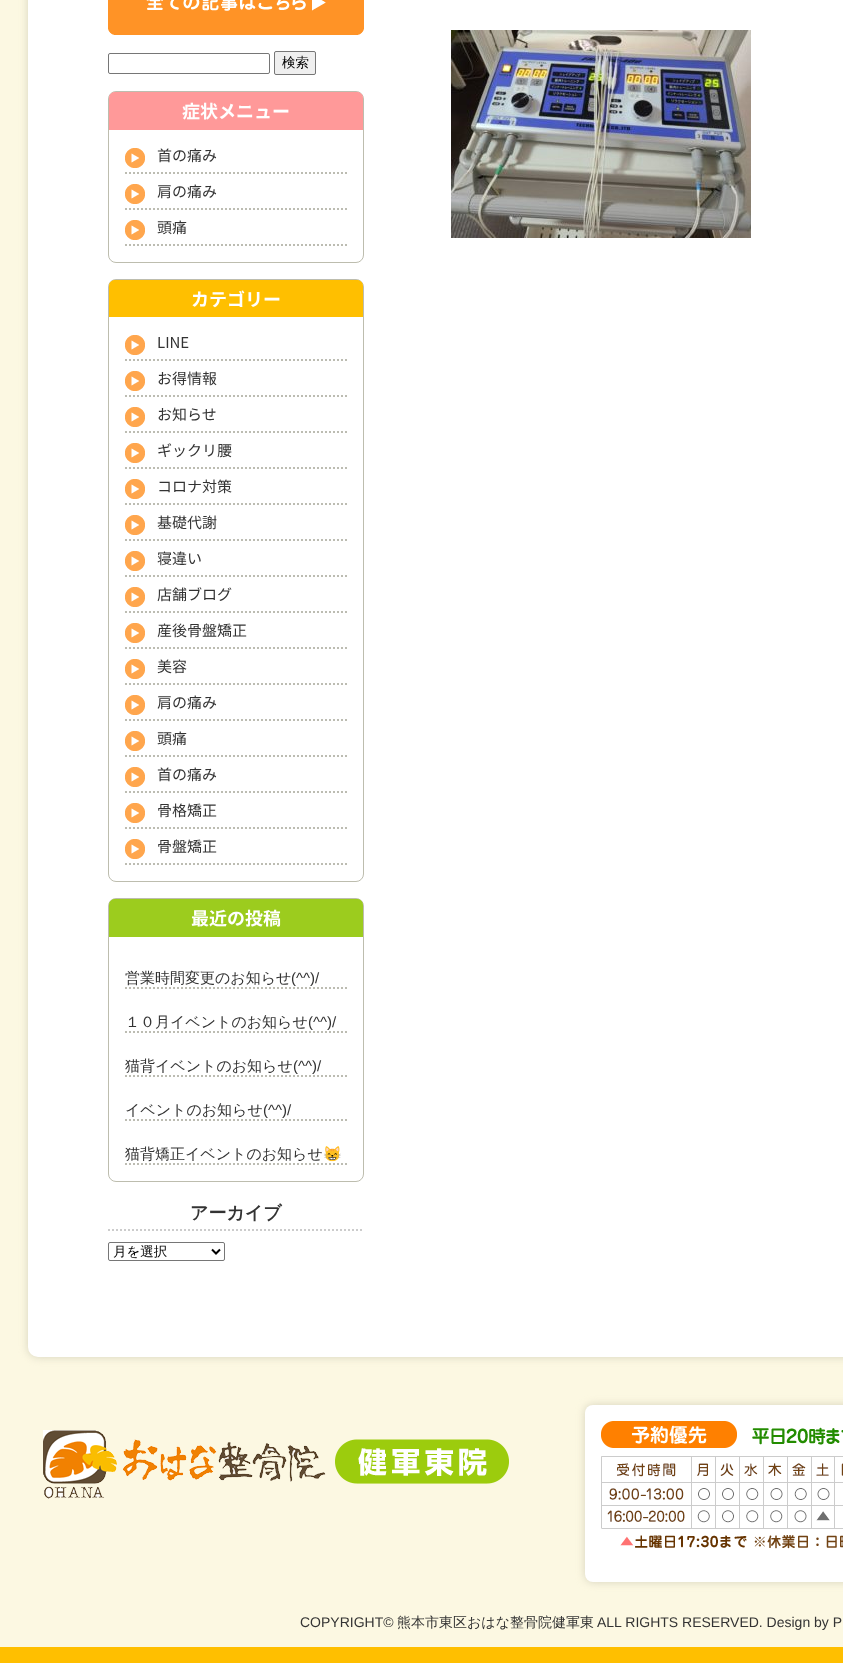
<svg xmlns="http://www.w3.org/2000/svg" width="843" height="1663">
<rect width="100%" height="100%" fill="#fcf8e2"/>
<rect x="28" y="-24" width="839" height="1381" rx="10" fill="#d5d2bd" filter="blur(4.5px)"/>
<rect x="28" y="-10" width="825" height="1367" rx="10" fill="#fff"/>
<image x="108" y="0" width="256" height="35" href="media/1.png"/>
<rect x="108.5" y="53.5" width="161" height="20" rx="1.5" fill="none" stroke="#767676"/>
<rect x="274.5" y="51.5" width="41" height="23" rx="1.5" fill="#efefef" stroke="#767676"/>
<text x="282" y="67" style="font-family:WenQuanYi Zen Hei;font-size:13.5px;font-weight:500;fill:#000">検索</text>
<rect x="108.5" y="91.5" width="255" height="171" rx="7.5" fill="none" stroke="#bdbdae"/>
<path d="M115 92h242c3.5 0 6 2.5 6 6v32h-254v-32c0-3.5 2.5-6 6-6z" fill="#f99"/>
<text x="182" y="118" style="font-family:Noto Sans JP;font-size:18px;font-weight:bold;fill:#fff">症状メニュー</text>
<image x="125" y="148" width="20" height="20" href="media/2.png"/>
<path d="M125 173h222" fill="none" stroke="#bcbcb2" stroke-width="2" stroke-dasharray="2 2"/>
<text x="157" y="161" style="font-family:Noto Sans JP;font-size:15px;fill:#333">首の痛み</text>
<image x="125" y="184" width="20" height="20" href="media/2.png"/>
<path d="M125 209h222" fill="none" stroke="#bcbcb2" stroke-width="2" stroke-dasharray="2 2"/>
<text x="157" y="197" style="font-family:Noto Sans JP;font-size:15px;fill:#333">肩の痛み</text>
<image x="125" y="220" width="20" height="20" href="media/2.png"/>
<path d="M125 245h222" fill="none" stroke="#bcbcb2" stroke-width="2" stroke-dasharray="2 2"/>
<text x="157" y="233" style="font-family:Noto Sans JP;font-size:15px;fill:#333">頭痛</text>
<rect x="108.5" y="279.5" width="255" height="602" rx="7.5" fill="none" stroke="#bdbdae"/>
<path d="M115 280h242c3.5 0 6 2.5 6 6v31h-254v-31c0-3.5 2.5-6 6-6z" fill="#ffbf00"/>
<text x="191" y="306" style="font-family:Noto Sans JP;font-size:18px;font-weight:bold;fill:#fff">カテゴリー</text>
<image x="125" y="335" width="20" height="20" href="media/2.png"/>
<path d="M125 360h222" fill="none" stroke="#bcbcb2" stroke-width="2" stroke-dasharray="2 2"/>
<text x="157" y="348" style="font-family:Noto Sans JP;font-size:15px;fill:#333">LINE</text>
<image x="125" y="371" width="20" height="20" href="media/2.png"/>
<path d="M125 396h222" fill="none" stroke="#bcbcb2" stroke-width="2" stroke-dasharray="2 2"/>
<text x="157" y="384" style="font-family:Noto Sans JP;font-size:15px;fill:#333">お得情報</text>
<image x="125" y="407" width="20" height="20" href="media/2.png"/>
<path d="M125 432h222" fill="none" stroke="#bcbcb2" stroke-width="2" stroke-dasharray="2 2"/>
<text x="157" y="420" style="font-family:Noto Sans JP;font-size:15px;fill:#333">お知らせ</text>
<image x="125" y="443" width="20" height="20" href="media/2.png"/>
<path d="M125 468h222" fill="none" stroke="#bcbcb2" stroke-width="2" stroke-dasharray="2 2"/>
<text x="157" y="456" style="font-family:Noto Sans JP;font-size:15px;fill:#333">ギックリ腰</text>
<image x="125" y="479" width="20" height="20" href="media/2.png"/>
<path d="M125 504h222" fill="none" stroke="#bcbcb2" stroke-width="2" stroke-dasharray="2 2"/>
<text x="157" y="492" style="font-family:Noto Sans JP;font-size:15px;fill:#333">コロナ対策</text>
<image x="125" y="515" width="20" height="20" href="media/2.png"/>
<path d="M125 540h222" fill="none" stroke="#bcbcb2" stroke-width="2" stroke-dasharray="2 2"/>
<text x="157" y="528" style="font-family:Noto Sans JP;font-size:15px;fill:#333">基礎代謝</text>
<image x="125" y="551" width="20" height="20" href="media/2.png"/>
<path d="M125 576h222" fill="none" stroke="#bcbcb2" stroke-width="2" stroke-dasharray="2 2"/>
<text x="157" y="564" style="font-family:Noto Sans JP;font-size:15px;fill:#333">寝違い</text>
<image x="125" y="587" width="20" height="20" href="media/2.png"/>
<path d="M125 612h222" fill="none" stroke="#bcbcb2" stroke-width="2" stroke-dasharray="2 2"/>
<text x="157" y="600" style="font-family:Noto Sans JP;font-size:15px;fill:#333">店舗ブログ</text>
<image x="125" y="623" width="20" height="20" href="media/2.png"/>
<path d="M125 648h222" fill="none" stroke="#bcbcb2" stroke-width="2" stroke-dasharray="2 2"/>
<text x="157" y="636" style="font-family:Noto Sans JP;font-size:15px;fill:#333">産後骨盤矯正</text>
<image x="125" y="659" width="20" height="20" href="media/2.png"/>
<path d="M125 684h222" fill="none" stroke="#bcbcb2" stroke-width="2" stroke-dasharray="2 2"/>
<text x="157" y="672" style="font-family:Noto Sans JP;font-size:15px;fill:#333">美容</text>
<image x="125" y="695" width="20" height="20" href="media/2.png"/>
<path d="M125 720h222" fill="none" stroke="#bcbcb2" stroke-width="2" stroke-dasharray="2 2"/>
<text x="157" y="708" style="font-family:Noto Sans JP;font-size:15px;fill:#333">肩の痛み</text>
<image x="125" y="731" width="20" height="20" href="media/2.png"/>
<path d="M125 756h222" fill="none" stroke="#bcbcb2" stroke-width="2" stroke-dasharray="2 2"/>
<text x="157" y="744" style="font-family:Noto Sans JP;font-size:15px;fill:#333">頭痛</text>
<image x="125" y="767" width="20" height="20" href="media/2.png"/>
<path d="M125 792h222" fill="none" stroke="#bcbcb2" stroke-width="2" stroke-dasharray="2 2"/>
<text x="157" y="780" style="font-family:Noto Sans JP;font-size:15px;fill:#333">首の痛み</text>
<image x="125" y="803" width="20" height="20" href="media/2.png"/>
<path d="M125 828h222" fill="none" stroke="#bcbcb2" stroke-width="2" stroke-dasharray="2 2"/>
<text x="157" y="816" style="font-family:Noto Sans JP;font-size:15px;fill:#333">骨格矯正</text>
<image x="125" y="839" width="20" height="20" href="media/2.png"/>
<path d="M125 864h222" fill="none" stroke="#bcbcb2" stroke-width="2" stroke-dasharray="2 2"/>
<text x="157" y="852" style="font-family:Noto Sans JP;font-size:15px;fill:#333">骨盤矯正</text>
<rect x="108.5" y="898.5" width="255" height="283" rx="7.5" fill="none" stroke="#bdbdae"/>
<path d="M115 899h242c3.5 0 6 2.5 6 6v32h-254v-32c0-3.5 2.5-6 6-6z" fill="#9ccc1e"/>
<text x="191" y="925" style="font-family:Noto Sans JP;font-size:18px;font-weight:bold;fill:#fff">最近の投稿</text>
<path d="M125 988h222" fill="none" stroke="#bcbcb2" stroke-width="2" stroke-dasharray="2 2"/>
<text x="125" y="983" style="font-family:WenQuanYi Zen Hei;font-size:15px;font-weight:500;fill:#333">営業時間変更のお知らせ</text>
<text x="291" y="983" style="font-family:Liberation Sans;font-size:15px;fill:#333">(^^)/</text>
<path d="M125 1032h222" fill="none" stroke="#bcbcb2" stroke-width="2" stroke-dasharray="2 2"/>
<text x="125" y="1027" style="font-family:WenQuanYi Zen Hei;font-size:15px;font-weight:500;fill:#333">１０月イベントのお知らせ</text>
<text x="308" y="1027" style="font-family:Liberation Sans;font-size:15px;fill:#333">(^^)/</text>
<path d="M125 1076h222" fill="none" stroke="#bcbcb2" stroke-width="2" stroke-dasharray="2 2"/>
<text x="125" y="1071" style="font-family:WenQuanYi Zen Hei;font-size:15px;font-weight:500;fill:#333">猫背イベントのお知らせ</text>
<text x="293" y="1071" style="font-family:Liberation Sans;font-size:15px;fill:#333">(^^)/</text>
<path d="M125 1120h222" fill="none" stroke="#bcbcb2" stroke-width="2" stroke-dasharray="2 2"/>
<text x="125" y="1115" style="font-family:WenQuanYi Zen Hei;font-size:15px;font-weight:500;fill:#333">イベントのお知らせ</text>
<text x="263" y="1115" style="font-family:Liberation Sans;font-size:15px;fill:#333">(^^)/</text>
<path d="M125 1164h222" fill="none" stroke="#bcbcb2" stroke-width="2" stroke-dasharray="2 2"/>
<text x="125" y="1159" style="font-family:WenQuanYi Zen Hei;font-size:15px;font-weight:500;fill:#333">猫背矯正イベントのお知らせ</text>
<text x="323" y="1159" style="font-family:Noto Color Emoji;font-size:15px;fill:#333">😸</text>
<path d="M108 1230h256" fill="none" stroke="#ccc" stroke-width="2" stroke-dasharray="2 2"/>
<text x="190" y="1219" style="font-family:WenQuanYi Zen Hei;font-size:18px;font-weight:bold;fill:#333">アーカイブ</text>
<rect x="108.5" y="1242.5" width="116" height="18" rx="1.5" fill="none" stroke="#767676"/>
<path d="M212 1249.5l4 4l4-4" fill="none" stroke="#000" stroke-width="2"/>
<text x="113" y="1256" style="font-family:WenQuanYi Zen Hei;font-size:13.5px;font-weight:500;fill:#000">月を選択</text>
<image x="451" y="30" width="300" height="208" href="media/3.png"/>
<rect y="1647" width="843" height="16" fill="#ffbf00"/>
<image x="43" y="1430" width="466" height="69" href="media/4.png"/>
<rect x="585" y="1405" width="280" height="177" rx="8" fill="#d5d2bd" filter="blur(4.5px)"/>
<rect x="585" y="1405" width="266" height="177" rx="8" fill="#fff"/>
<image x="601" y="1421" width="242" height="27" href="media/5.png"/>
<image x="601" y="1456" width="242" height="93" href="media/6.png"/>
<text x="300" y="1627" style="font-family:Liberation Sans;font-size:14px;fill:#333">COPYRIGHT©</text>
<text x="397" y="1627" style="font-family:WenQuanYi Zen Hei;font-size:14px;font-weight:500;fill:#333">熊本市東区おはな整骨院健軍東</text>
<text x="597" y="1627" style="font-family:Liberation Sans;font-size:14px;fill:#333">ALL RIGHTS RESERVED. Design by P</text>
</svg>
